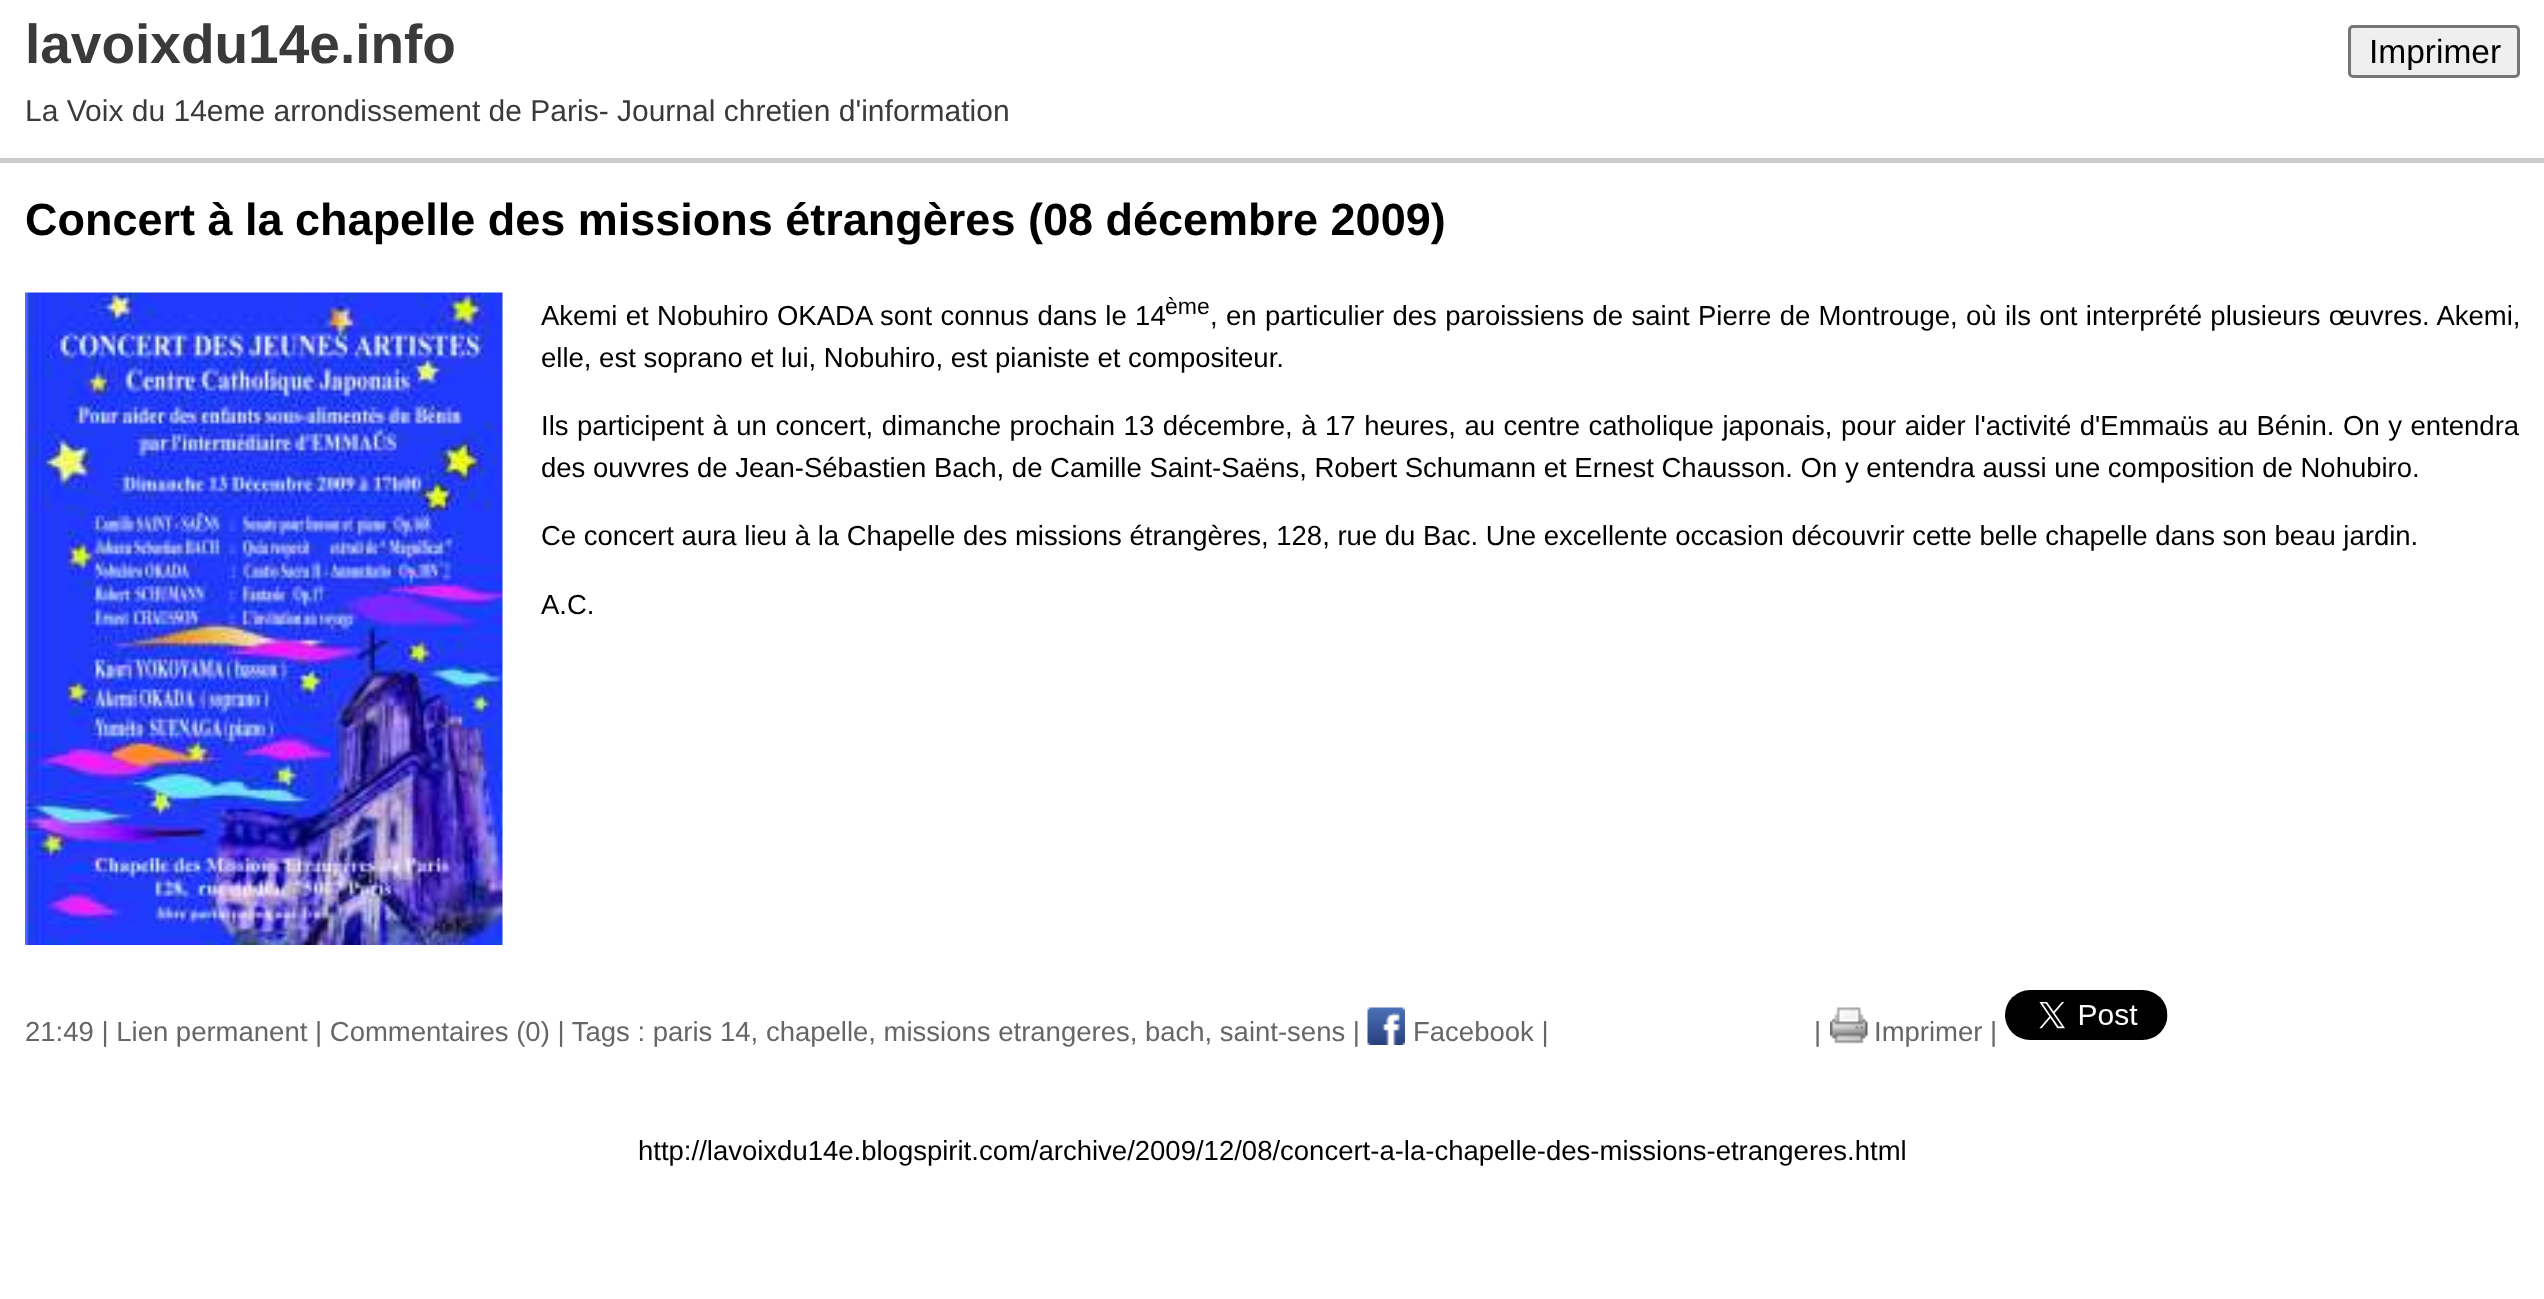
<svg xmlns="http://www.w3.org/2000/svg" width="2544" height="1299">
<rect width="100%" height="100%" fill="#fff"/>
<rect y="158" width="2544" height="5" fill="#ccc"/>
<text x="25" y="63" style="font-family:Liberation Sans;font-size:55px;font-weight:bold;fill:#3a3a3a">lavoixdu14e.info</text>
<rect x="2349.5" y="26.5" width="169" height="50" rx="3.5" fill="#efefef" stroke="#767676" stroke-width="3"/>
<text x="2369" y="63" style="font-family:Liberation Sans;font-size:33.5px;fill:#000">Imprimer</text>
<text x="25" y="121" style="font-family:Liberation Sans;font-size:30px;fill:#3a3a3a">La Voix du 14eme arrondissement de Paris- Journal chretien d'information</text>
<text x="25" y="235" style="font-family:Liberation Sans;font-size:45px;font-weight:bold;fill:#000">Concert à la chapelle des missions étrangères (08 décembre 2009)</text>
<image x="25" y="292" width="478" height="653" href="media/1.png"/>
<text x="541" y="325" word-spacing="0.7" style="font-family:Liberation Sans;font-size:27.5px;fill:#000">Akemi et Nobuhiro OKADA sont connus dans le 14</text>
<text x="1165" y="314" style="font-family:Liberation Sans;font-size:23px;fill:#000">ème</text>
<text x="1210" y="325" word-spacing="0.7" style="font-family:Liberation Sans;font-size:27.5px;fill:#000">, en particulier des paroissiens de saint Pierre de Montrouge, où ils ont interprété plusieurs œuvres. Akemi,</text>
<text x="541" y="367" style="font-family:Liberation Sans;font-size:27.5px;fill:#000">elle, est soprano et lui, Nobuhiro, est pianiste et compositeur.</text>
<text x="541" y="435" word-spacing="0.9" style="font-family:Liberation Sans;font-size:27.5px;fill:#000">Ils participent à un concert, dimanche prochain 13 décembre, à 17 heures, au centre catholique japonais, pour aider l'activité d'Emmaüs au Bénin. On y entendra</text>
<text x="541" y="477" style="font-family:Liberation Sans;font-size:27.5px;fill:#000">des ouvvres de Jean-Sébastien Bach, de Camille Saint-Saëns, Robert Schumann et Ernest Chausson. On y entendra aussi une composition de Nohubiro.</text>
<text x="541" y="545" style="font-family:Liberation Sans;font-size:27.5px;fill:#000">Ce concert aura lieu à la Chapelle des missions étrangères, 128, rue du Bac. Une excellente occasion découvrir cette belle chapelle dans son beau jardin.</text>
<text x="541" y="614" style="font-family:Liberation Sans;font-size:27.5px;fill:#000">A.C.</text>
<text x="25" y="1041" style="font-family:Liberation Sans;font-size:27.5px;fill:#666">21:49 | Lien permanent | Commentaires (0) | Tags : paris 14, chapelle, missions etrangeres, bach, saint-sens |</text>
<image x="1367" y="1007" width="38" height="38" href="media/2.png"/>
<text x="1413" y="1041" style="font-family:Liberation Sans;font-size:27.5px;fill:#666">Facebook |</text>
<text x="1814" y="1041" style="font-family:Liberation Sans;font-size:27.5px;fill:#666">|</text>
<image x="1830" y="1007" width="38" height="37" href="media/3.png"/>
<text x="1874" y="1041" style="font-family:Liberation Sans;font-size:27.5px;fill:#666">Imprimer |</text>
<image x="2005" y="990" width="163" height="50" href="media/4.png"/>
<text x="638" y="1160" style="font-family:Liberation Sans;font-size:27.5px;fill:#000">http://lavoixdu14e.blogspirit.com/archive/2009/12/08/concert-a-la-chapelle-des-missions-etrangeres.html</text>
</svg>
